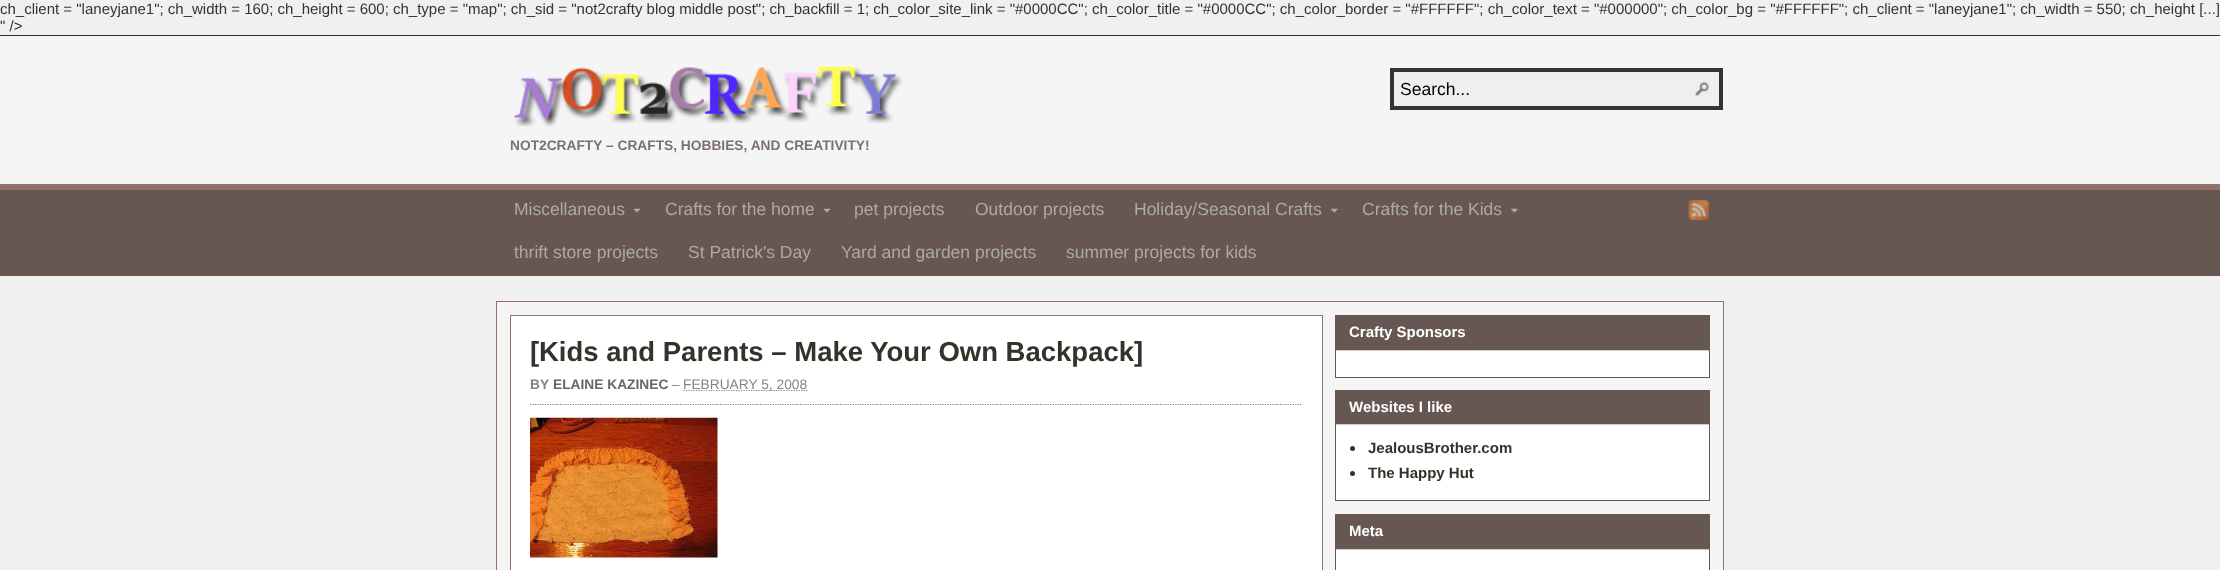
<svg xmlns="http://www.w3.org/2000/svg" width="2220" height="570">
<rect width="100%" height="100%" fill="#f0f0f0"/>
<text x="0" y="14" style="font-family:Liberation Sans;font-size:15px;fill:#333">ch_client = "laneyjane1"; ch_width = 160; ch_height = 600; ch_type = "map"; ch_sid = "not2crafty blog middle post"; ch_backfill = 1; ch_color_site_link = "#0000CC"; ch_color_title = "#0000CC"; ch_color_border = "#FFFFFF"; ch_color_text = "#000000"; ch_color_bg = "#FFFFFF"; ch_client = "laneyjane1"; ch_width = 550; ch_height [...]</text>
<text x="0" y="31" style="font-family:Liberation Sans;font-size:15px;fill:#333">" /&gt;</text>
<rect y="35" width="2220" height="1" fill="#333"/>
<rect y="36" width="2220" height="148" fill="#f5f5f5"/>
<rect y="184" width="2220" height="6" fill="#937168"/>
<rect x="1392" y="70" width="329" height="38" fill="#efefef" stroke="#383332" stroke-width="4"/>
<text x="1400" y="95" style="font-family:Liberation Sans;font-size:17.5px;fill:#000">Search...</text>
<image x="1695" y="82" width="14" height="15" href="media/1.png"/>
<image x="513" y="66" width="390" height="61" href="media/2.png"/>
<text x="510" y="150" style="font-family:Liberation Sans;font-size:13.75px;font-weight:bold;fill:#7d716d">NOT2CRAFTY – CRAFTS, HOBBIES, AND CREATIVITY!</text>
<rect y="190" width="2220" height="86" fill="#665753"/>
<text x="514" y="215" style="font-family:Liberation Sans;font-size:17.5px;fill:#aaa">Miscellaneous</text>
<image x="633" y="208" width="7" height="5" href="media/3.png"/>
<text x="665" y="215" style="font-family:Liberation Sans;font-size:17.5px;fill:#aaa">Crafts for the home</text>
<image x="823" y="208" width="7" height="5" href="media/4.png"/>
<text x="854" y="215" style="font-family:Liberation Sans;font-size:17.5px;fill:#aaa">pet projects</text>
<text x="975" y="215" style="font-family:Liberation Sans;font-size:17.5px;fill:#aaa">Outdoor projects</text>
<text x="1134" y="215" style="font-family:Liberation Sans;font-size:17.5px;fill:#aaa">Holiday/Seasonal Crafts</text>
<image x="1331" y="208" width="7" height="5" href="media/5.png"/>
<text x="1362" y="215" style="font-family:Liberation Sans;font-size:17.5px;fill:#aaa">Crafts for the Kids</text>
<image x="1511" y="208" width="7" height="5" href="media/5.png"/>
<text x="514" y="258" style="font-family:Liberation Sans;font-size:17.5px;fill:#aaa">thrift store projects</text>
<text x="688" y="258" style="font-family:Liberation Sans;font-size:17.5px;fill:#aaa">St Patrick's Day</text>
<text x="841" y="258" style="font-family:Liberation Sans;font-size:17.5px;fill:#aaa">Yard and garden projects</text>
<text x="1066" y="258" style="font-family:Liberation Sans;font-size:17.5px;fill:#aaa">summer projects for kids</text>
<image x="1688" y="200" width="21" height="20" href="media/6.png"/>
<rect x="496.5" y="301.5" width="1227" height="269" fill="#f5f5f5" stroke="#937168"/>
<rect x="510.5" y="315.5" width="812" height="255" fill="#fff" stroke="#937168"/>
<text x="530" y="361" style="font-family:Liberation Sans;font-size:27.5px;font-weight:bold;fill:#333">[</text>
<text x="539" y="361" style="font-family:Liberation Sans;font-size:27.5px;font-weight:bold;fill:#313428">Kids and Parents – Make Your Own Backpack</text>
<text x="1134" y="361" style="font-family:Liberation Sans;font-size:27.5px;font-weight:bold;fill:#333">]</text>
<path d="M530 404.5h772.5" fill="none" stroke="#937168" stroke-width="1.2" stroke-dasharray="1.25 1.25"/>
<text x="530" y="389" style="font-family:Liberation Sans;font-size:13.75px;font-weight:bold;fill:#848485">BY</text>
<text x="553" y="389" style="font-family:Liberation Sans;font-size:13.75px;font-weight:bold;fill:#666">ELAINE KAZINEC</text>
<text x="672" y="389" style="font-family:Liberation Sans;font-size:13.75px;fill:#848485">–</text>
<path d="M683.5 390.5h124" fill="none" stroke="#848485" stroke-width="1.2" stroke-dasharray="1.25 1.25"/>
<text x="683" y="389" style="font-family:Liberation Sans;font-size:13.75px;fill:#848485">FEBRUARY 5, 2008</text>
<image x="530" y="417" width="188" height="141" href="media/7.png"/>
<rect x="1336" y="351" width="373" height="26" fill="#fff"/>
<rect x="1335.5" y="315.5" width="374" height="62" fill="none" stroke="#665753"/>
<rect x="1336" y="316" width="373" height="34" fill="#665753"/>
<rect x="1336" y="350" width="373" height="1" fill="#ccc"/>
<text x="1349" y="337" style="font-family:Liberation Sans;font-size:15px;font-weight:bold;fill:#fff">Crafty Sponsors</text>
<rect x="1336" y="425" width="373" height="75" fill="#fff"/>
<rect x="1335.5" y="390.5" width="374" height="110" fill="none" stroke="#665753"/>
<rect x="1336" y="391" width="373" height="33" fill="#665753"/>
<rect x="1336" y="424" width="373" height="1" fill="#ccc"/>
<text x="1349" y="412" style="font-family:Liberation Sans;font-size:15px;font-weight:bold;fill:#fff">Websites I like</text>
<circle cx="1352.5" cy="448.5" r="2.5" fill="#333"/>
<text x="1368" y="453" style="font-family:Liberation Sans;font-size:15px;font-weight:bold;fill:#313428">JealousBrother.com</text>
<circle cx="1352.5" cy="473.5" r="2.5" fill="#333"/>
<text x="1368" y="478" style="font-family:Liberation Sans;font-size:15px;font-weight:bold;fill:#313428">The Happy Hut</text>
<rect x="1336" y="550" width="373" height="20" fill="#fff"/>
<rect x="1335.5" y="514.5" width="374" height="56" fill="none" stroke="#665753"/>
<rect x="1336" y="515" width="373" height="34" fill="#665753"/>
<rect x="1336" y="549" width="373" height="1" fill="#ccc"/>
<text x="1349" y="536" style="font-family:Liberation Sans;font-size:15px;font-weight:bold;fill:#fff">Meta</text>
</svg>
